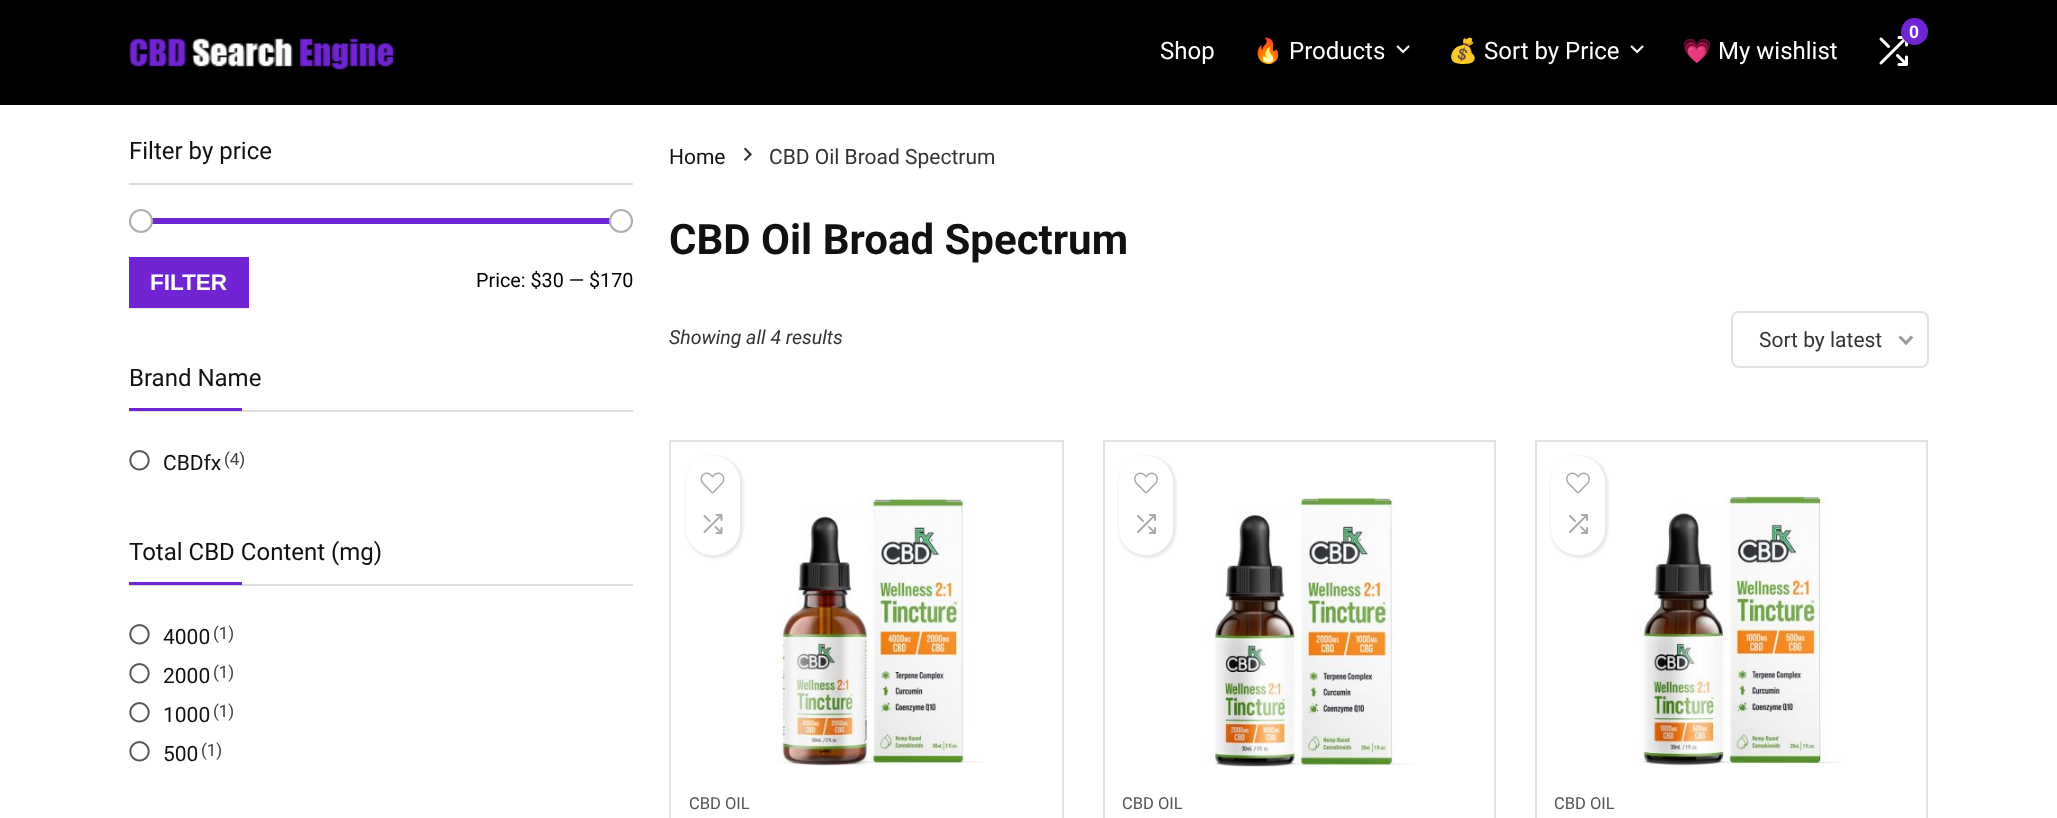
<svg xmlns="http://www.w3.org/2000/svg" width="2057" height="818">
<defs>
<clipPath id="clip1"><rect x="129" y="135" width="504" height="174"/></clipPath>
<clipPath id="clip2"><path d="M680 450h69v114h-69zm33 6c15 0 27 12 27 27v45c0 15-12 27-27 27c-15 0-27-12-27-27v-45c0-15 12-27 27-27z" clip-rule="evenodd"/></clipPath>
<clipPath id="clip3"><path d="M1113 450h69v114h-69zm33 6c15 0 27 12 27 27v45c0 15-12 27-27 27c-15 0-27-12-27-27v-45c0-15 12-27 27-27z" clip-rule="evenodd"/></clipPath>
<clipPath id="clip4"><path d="M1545 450h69v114h-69zm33 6c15 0 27 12 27 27v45c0 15-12 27-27 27c-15 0-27-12-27-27v-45c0-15 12-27 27-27z" clip-rule="evenodd"/></clipPath>
</defs>
<rect width="100%" height="100%" fill="#fff"/>
<rect width="2057" height="105" fill="#000"/>
<image x="1879" y="36" width="29" height="30" href="media/1.png"/>
<circle cx="1914.5" cy="31.5" r="13.5" fill="#7124d2"/>
<text x="1909" y="38" style="font-family:Liberation Sans;font-size:18px;font-weight:bold;fill:#fff">0</text>
<image x="129" y="38" width="266" height="32" href="media/2.png"/>
<text x="1160" y="59" style="font-family:Roboto;font-size:24px;fill:#fff">Shop</text>
<text x="1253" y="59" style="font-family:Noto Color Emoji;font-size:24px;fill:#fff">🔥</text>
<text x="1289" y="59" style="font-family:Roboto;font-size:24px;fill:#fff">Products</text>
<image x="1396" y="45" width="14" height="9" href="media/3.png"/>
<text x="1448" y="59" style="font-family:Noto Color Emoji;font-size:24px;fill:#fff">💰</text>
<text x="1484" y="59" style="font-family:Roboto;font-size:24px;fill:#fff">Sort by Price</text>
<image x="1630" y="45" width="14" height="9" href="media/3.png"/>
<text x="1682" y="59" style="font-family:Noto Color Emoji;font-size:24px;fill:#fff">💗</text>
<text x="1718" y="59" style="font-family:Roboto;font-size:24px;fill:#fff">My wishlist</text>
<rect x="129" y="183" width="504" height="2" fill="#ddd"/>
<text x="129" y="159" style="font-family:Roboto;font-size:24px;fill:#111">Filter by price</text>
<rect x="129" y="218" width="504" height="6" rx="3" fill="#7124d2"/>
<circle cx="141" cy="221" r="11" fill="#fff" stroke="#aeaeae" stroke-width="2"/>
<circle cx="621" cy="221" r="11" fill="#fff" stroke="#aeaeae" stroke-width="2"/>
<g clip-path="url(#clip1)">
<rect x="129" y="260" width="120" height="51" fill="#e7e7e7" filter="blur(1.5px)"/>
</g>
<rect x="129" y="257" width="120" height="51" fill="#7124d2"/>
<text x="150" y="290" style="font-family:Liberation Sans;font-size:22.5px;font-weight:bold;fill:#fff">FILTER</text>
<text x="476" y="287" style="font-family:Roboto;font-size:19.75px;fill:#000">Price: $30 — $170</text>
<rect x="129" y="410" width="504" height="2" fill="#ddd"/>
<text x="129" y="386" style="font-family:Roboto;font-size:24px;fill:#111">Brand Name</text>
<rect x="129" y="408" width="113" height="3" fill="#7124d2"/>
<image x="129" y="450" width="21" height="21" href="media/4.png"/>
<text x="163" y="470" style="font-family:Roboto;font-size:21px;fill:#111">CBDfx</text>
<text x="224" y="465" style="font-family:Roboto;font-size:17px;fill:#414141">(4)</text>
<rect x="129" y="584" width="504" height="2" fill="#ddd"/>
<text x="129" y="560" style="font-family:Roboto;font-size:24px;fill:#111">Total CBD Content (mg)</text>
<rect x="129" y="582" width="113" height="3" fill="#7124d2"/>
<image x="129" y="624" width="21" height="21" href="media/4.png"/>
<text x="163" y="644" style="font-family:Roboto;font-size:21px;fill:#111">4000</text>
<text x="213" y="639" style="font-family:Roboto;font-size:17px;fill:#414141">(1)</text>
<image x="129" y="663" width="21" height="21" href="media/4.png"/>
<text x="163" y="683" style="font-family:Roboto;font-size:21px;fill:#111">2000</text>
<text x="213" y="678" style="font-family:Roboto;font-size:17px;fill:#414141">(1)</text>
<image x="129" y="702" width="21" height="21" href="media/4.png"/>
<text x="163" y="722" style="font-family:Roboto;font-size:21px;fill:#111">1000</text>
<text x="213" y="717" style="font-family:Roboto;font-size:17px;fill:#414141">(1)</text>
<image x="129" y="741" width="21" height="21" href="media/4.png"/>
<text x="163" y="761" style="font-family:Roboto;font-size:21px;fill:#111">500</text>
<text x="201" y="756" style="font-family:Roboto;font-size:17px;fill:#414141">(1)</text>
<text x="669" y="164" style="font-family:Roboto;font-size:21px;fill:#111">Home</text>
<image x="744" y="147" width="8" height="14" href="media/5.png"/>
<text x="769" y="164" style="font-family:Roboto;font-size:21px;fill:#333">CBD Oil Broad Spectrum</text>
<text x="669" y="254" style="font-family:Roboto;font-size:42px;font-weight:bold;fill:#111">CBD Oil Broad Spectrum</text>
<text x="669" y="344" style="font-family:Roboto;font-size:19.5px;font-style:italic;fill:#333">Showing all 4 results</text>
<rect x="1732" y="312" width="196" height="55" rx="7" fill="none" stroke="#e1e1e1" stroke-width="2"/>
<text x="1759" y="347" style="font-family:Roboto;font-size:21px;fill:#333">Sort by latest</text>
<path d="M1911 335.5l2.5 2l-7.5 7.5l-2-2z" fill="#999"/>
<path d="M1900.5 335.5l7.5 7.5l-2 2l-7.5-7.5z" fill="#999"/>
<rect x="670" y="441" width="393" height="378" fill="none" stroke="#e2e2e2" stroke-width="2"/>
<g clip-path="url(#clip2)">
<rect x="686" y="456" width="57" height="102" rx="28.5" fill="#0000001a" filter="blur(1.5px)"/>
</g>
<rect x="686" y="456" width="54" height="99" rx="27" fill="#ffffffc7"/>
<image x="700" y="472" width="25" height="22" href="media/6.png"/>
<image x="703" y="514" width="20" height="20" href="media/7.png"/>
<image x="776" y="497" width="208" height="269" href="media/8.png"/>
<text x="689" y="809" style="font-family:Roboto;font-size:16.5px;fill:#555">CBD OIL</text>
<rect x="1104" y="441" width="391" height="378" fill="none" stroke="#e2e2e2" stroke-width="2"/>
<g clip-path="url(#clip3)">
<rect x="1119" y="456" width="57" height="102" rx="28.5" fill="#0000001a" filter="blur(1.5px)"/>
</g>
<rect x="1119" y="456" width="54" height="99" rx="27" fill="#ffffffc7"/>
<image x="1134" y="472" width="24" height="22" href="media/9.png"/>
<image x="1137" y="514" width="19" height="20" href="media/10.png"/>
<image x="1207" y="496" width="209" height="271" href="media/11.png"/>
<text x="1122" y="809" style="font-family:Roboto;font-size:16.5px;fill:#555">CBD OIL</text>
<rect x="1536" y="441" width="391" height="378" fill="none" stroke="#e2e2e2" stroke-width="2"/>
<g clip-path="url(#clip4)">
<rect x="1551" y="456" width="57" height="102" rx="28.5" fill="#0000001a" filter="blur(1.5px)"/>
</g>
<rect x="1551" y="456" width="54" height="99" rx="27" fill="#ffffffc7"/>
<image x="1566" y="472" width="24" height="22" href="media/9.png"/>
<image x="1569" y="514" width="19" height="20" href="media/10.png"/>
<image x="1639" y="496" width="202" height="270" href="media/12.png"/>
<text x="1554" y="809" style="font-family:Roboto;font-size:16.5px;fill:#555">CBD OIL</text>
</svg>
